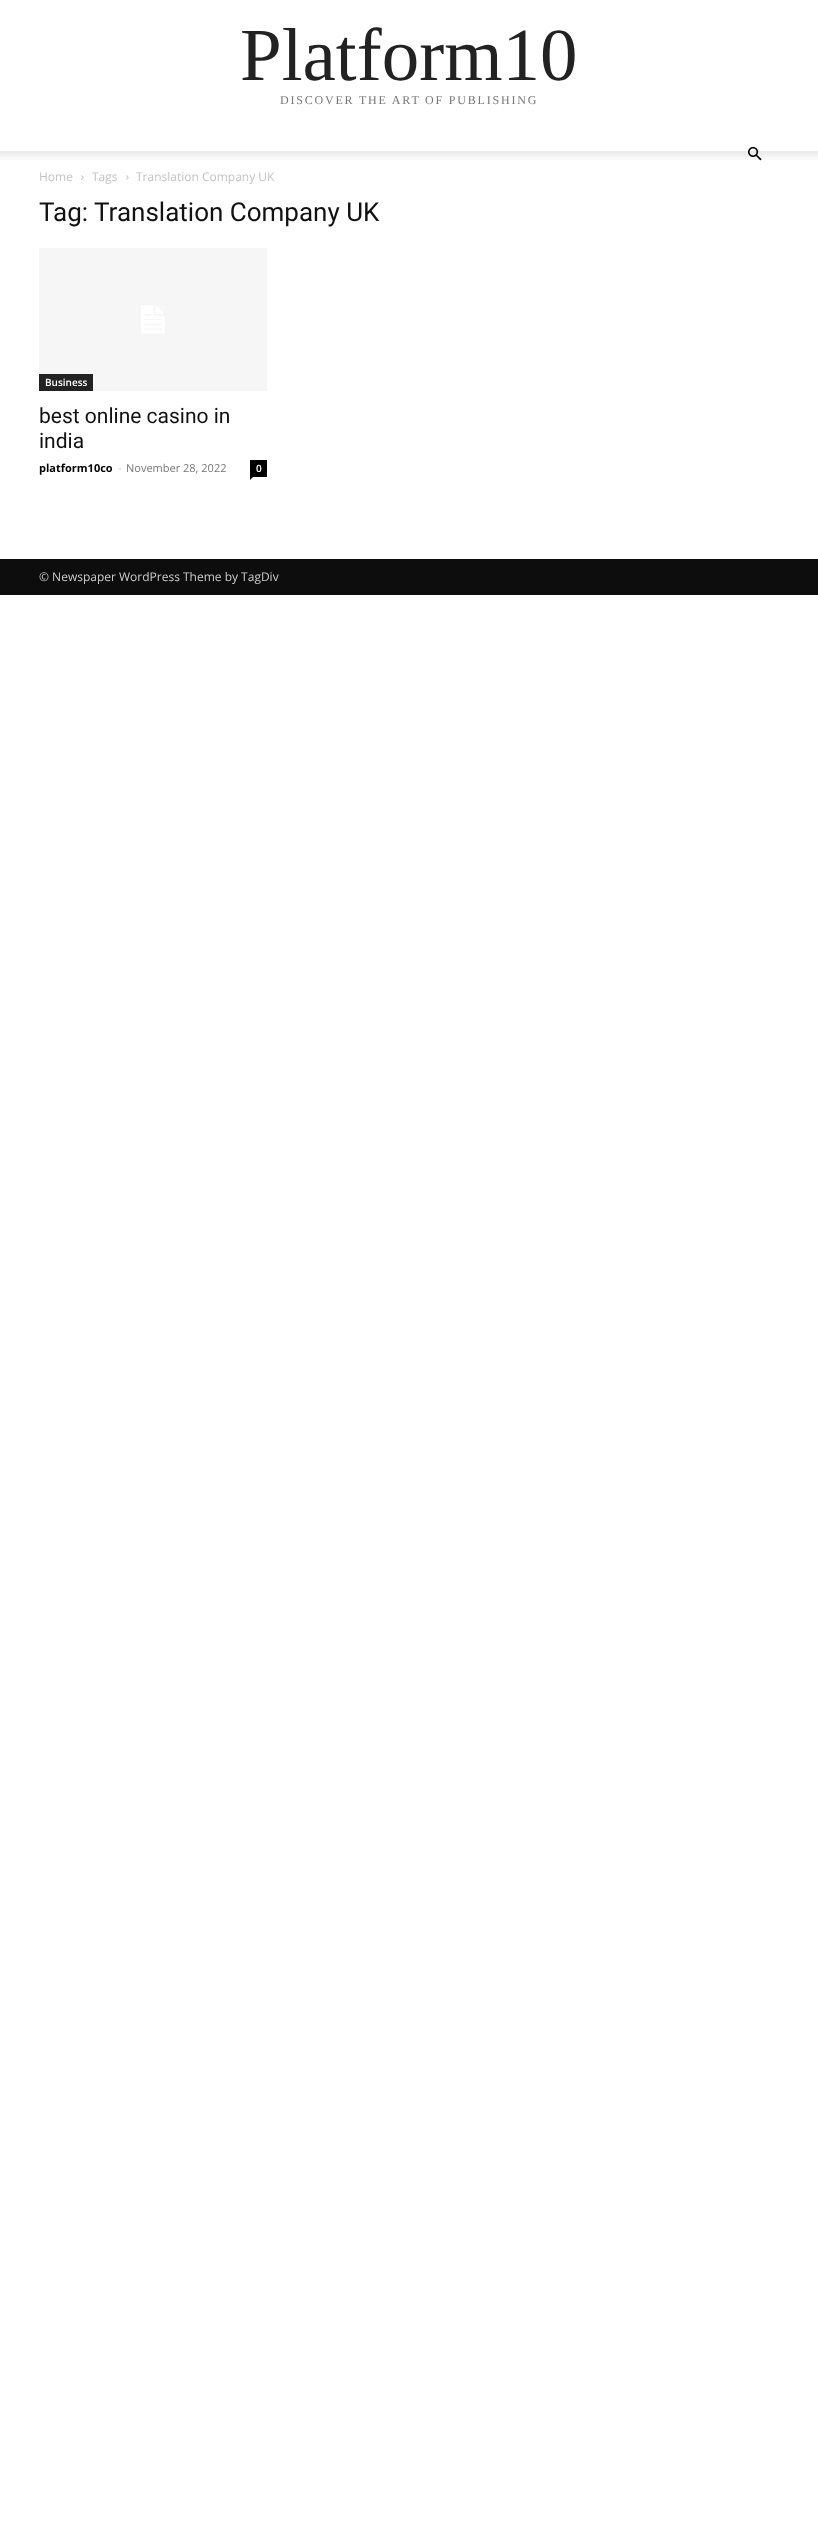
<svg xmlns="http://www.w3.org/2000/svg" width="818" height="2542">
<rect width="100%" height="100%" fill="#fff"/>
<text x="240" y="80" style="font-family:Liberation Serif;font-size:75px;fill:#222">Platform10</text>
<text x="280" y="104" style="font-family:Liberation Serif;font-size:12px;letter-spacing:1.8px;fill:#767676">DISCOVER THE ART OF PUBLISHING</text>
<image x="0" y="151" width="818" height="9" href="media/2.png"/>
<image x="748" y="146" width="14" height="15" href="media/1.png"/>
<text x="39" y="181" style="font-family:Open Sans;font-size:12px;fill:#c3c3c3">Home</text>
<image x="81" y="175" width="3" height="5" href="media/3.png"/>
<text x="92" y="181" style="font-family:Open Sans;font-size:12px;fill:#c3c3c3">Tags</text>
<image x="126" y="175" width="3" height="5" href="media/3.png"/>
<text x="136" y="181" style="font-family:Open Sans;font-size:12px;fill:#c3c3c3">Translation Company UK</text>
<text x="39" y="221" style="font-family:Roboto;font-size:26px;fill:#111">Tag: Translation Company UK</text>
<image x="39" y="248" width="228" height="143" href="media/4.png"/>
<rect x="39" y="374" width="54" height="17" fill="#222"/>
<text x="45" y="386" style="font-family:Open Sans;font-size:10px;font-weight:600;fill:#fff">Business</text>
<text x="39" y="423" style="font-family:Roboto;font-size:21px;fill:#111">best online casino in</text>
<text x="39" y="448" style="font-family:Roboto;font-size:21px;fill:#111">india</text>
<text x="39" y="472" style="font-family:Open Sans;font-size:11px;font-weight:bold;fill:#000">platform10co</text>
<text x="118" y="472" style="font-family:Open Sans;font-size:11px;fill:#ccc">-</text>
<text x="126" y="472" style="font-family:Open Sans;font-size:11px;fill:#767676">November 28, 2022</text>
<rect x="250" y="460" width="17" height="17" fill="#000"/>
<text x="256" y="472" style="font-family:Open Sans;font-size:10px;font-weight:600;fill:#fff">0</text>
<path d="M250 477h3l-3 3z" fill="#000"/>
<rect y="559" width="818" height="36" fill="#0d0d0d"/>
<text x="39" y="581" style="font-family:Open Sans;font-size:12px;fill:#ccc">© Newspaper WordPress Theme by TagDiv</text>
</svg>
